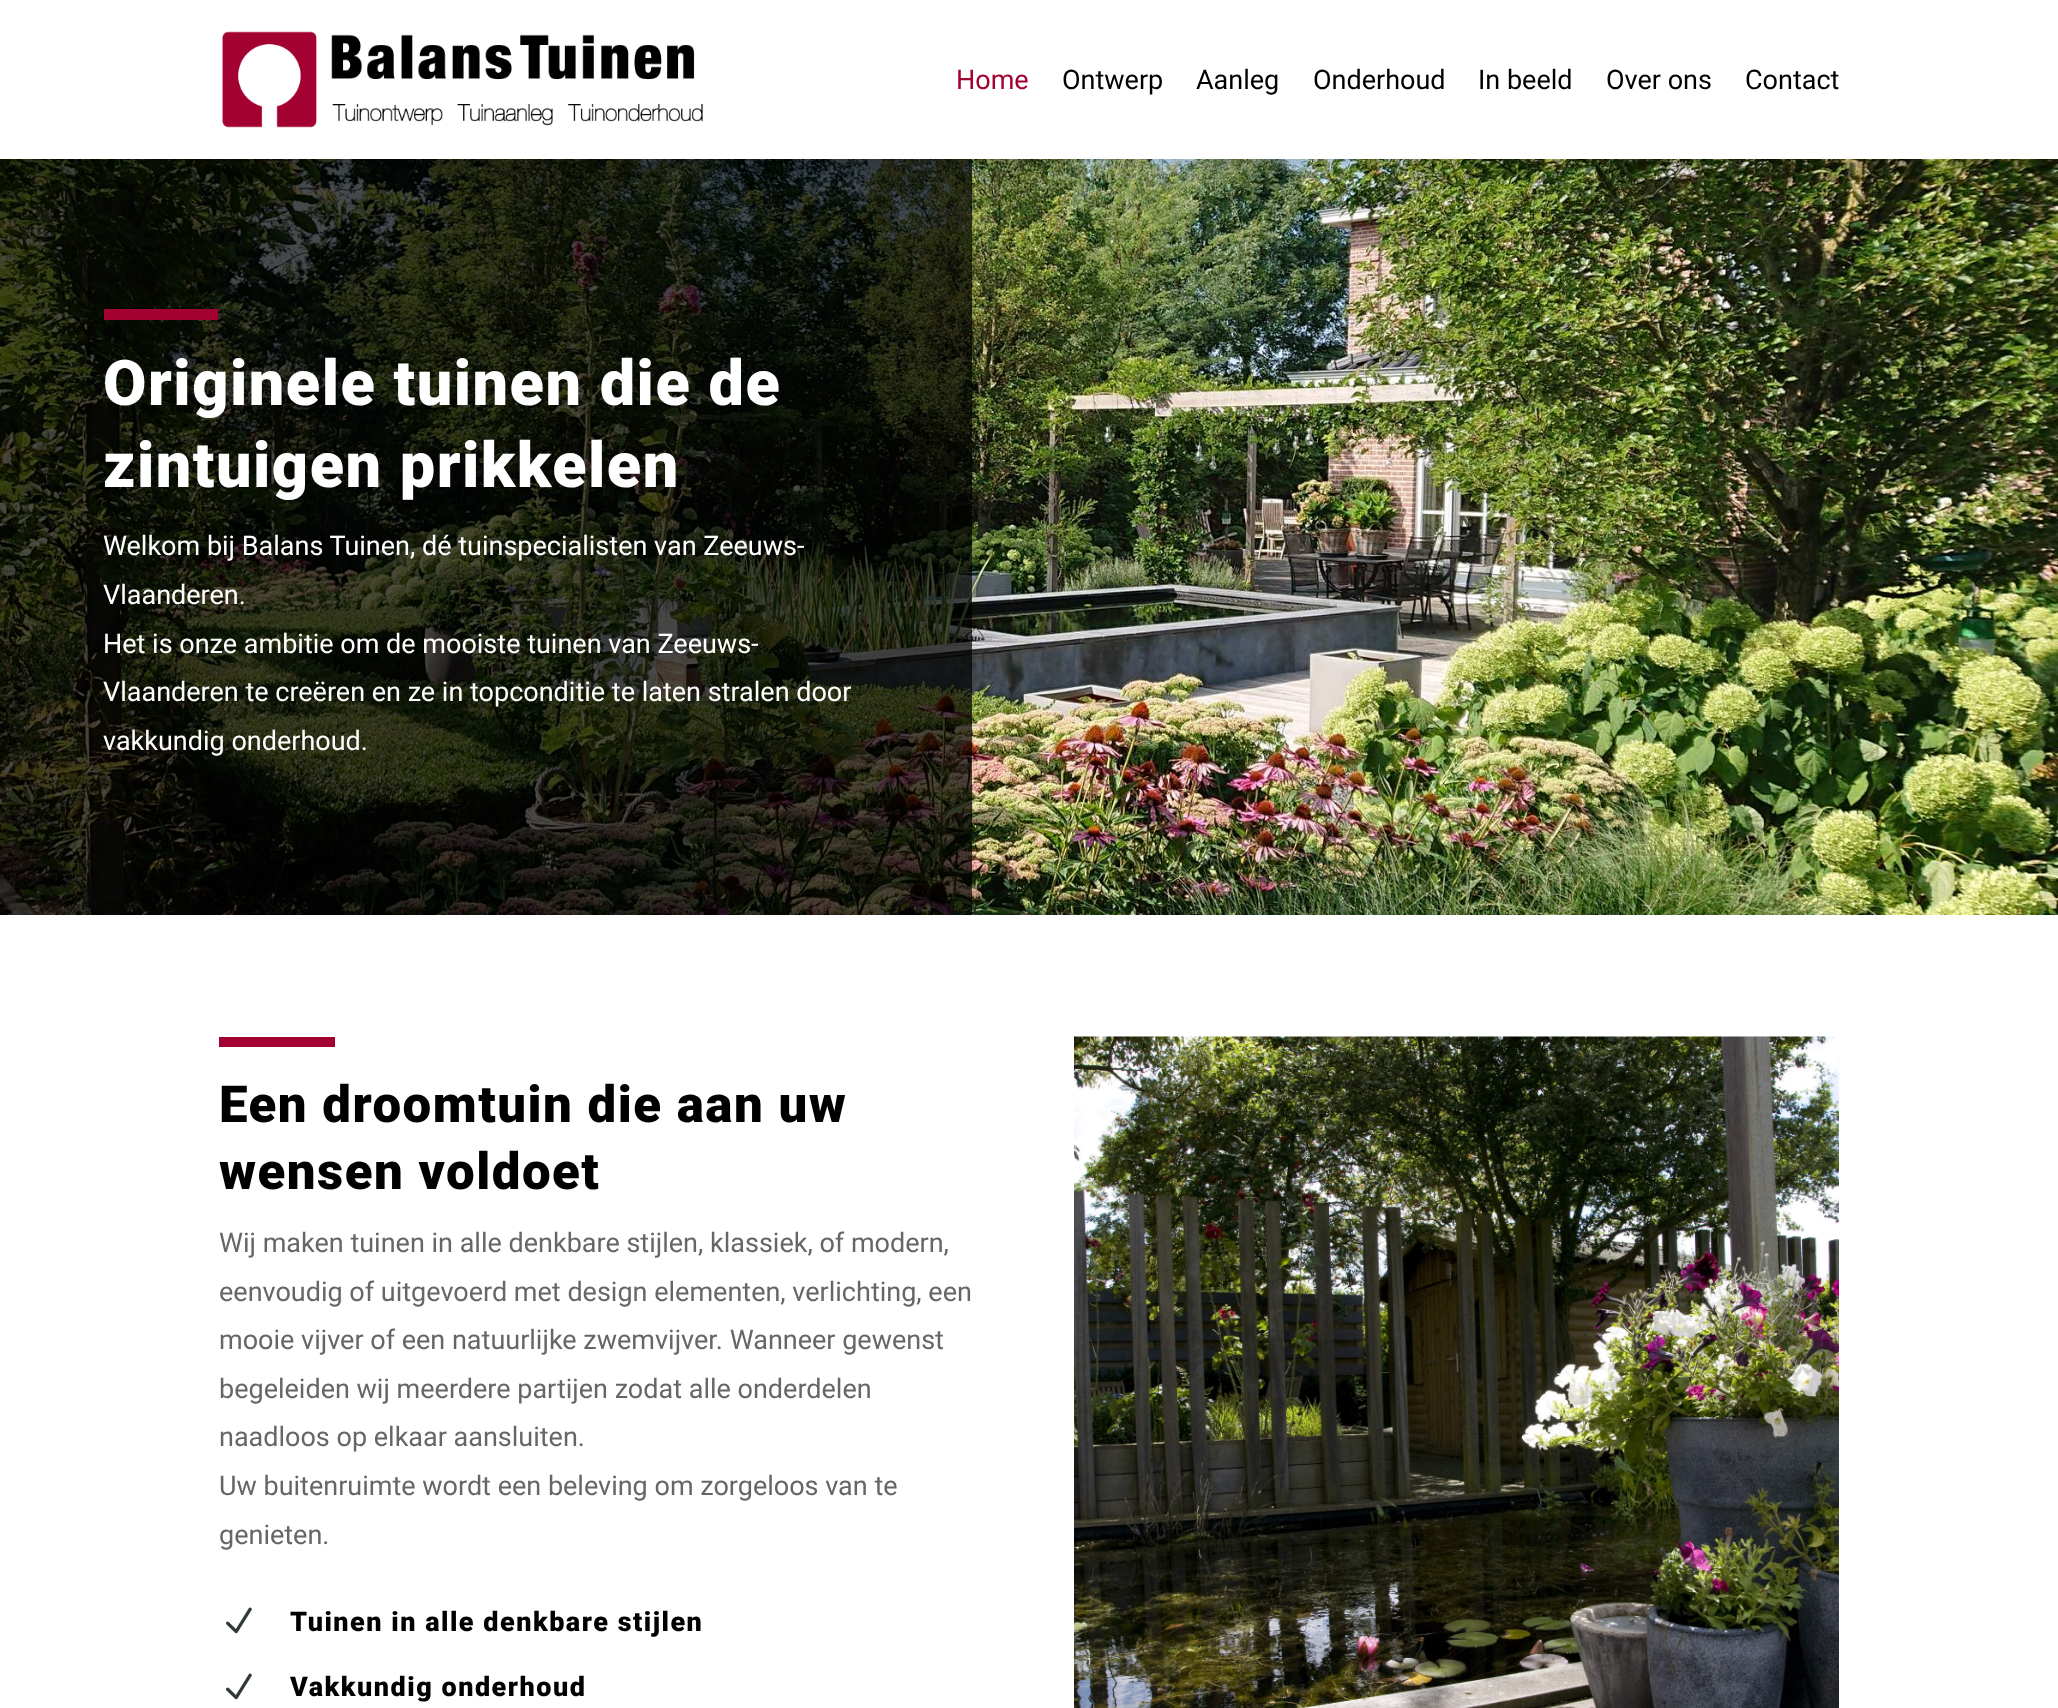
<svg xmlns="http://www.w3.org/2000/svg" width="2058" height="1708">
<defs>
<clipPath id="clip1"><rect x="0" y="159" width="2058" height="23"/></clipPath>
</defs>
<rect width="100%" height="100%" fill="#fff"/>
<image x="0" y="159" width="2058" height="756" href="media/2.png"/>
<rect y="159" width="972" height="756" fill="#000000b3"/>
<g clip-path="url(#clip1)">
<rect y="3" width="2058" height="159" fill="#0000004d" filter="blur(13.5px)"/>
</g>
<image x="222" y="31" width="481" height="97" href="media/1.png"/>
<text x="956" y="89" style="font-family:Roboto;font-size:27px;fill:#a40133">Home</text>
<text x="1062" y="89" style="font-family:Roboto;font-size:27px;fill:#000">Ontwerp</text>
<text x="1196" y="89" style="font-family:Roboto;font-size:27px;fill:#000">Aanleg</text>
<text x="1313" y="89" style="font-family:Roboto;font-size:27px;fill:#000">Onderhoud</text>
<text x="1478" y="89" style="font-family:Roboto;font-size:27px;fill:#000">In beeld</text>
<text x="1606" y="89" style="font-family:Roboto;font-size:27px;fill:#000">Over ons</text>
<text x="1745" y="89" style="font-family:Roboto;font-size:27px;fill:#000">Contact</text>
<rect x="104" y="309" width="114" height="11" fill="#a40133"/>
<text x="103" y="405" style="font-family:Roboto;font-size:63px;font-weight:900;letter-spacing:1.5px;fill:#fff">Originele tuinen die de</text>
<text x="103" y="487" style="font-family:Roboto;font-size:63px;font-weight:900;letter-spacing:1.5px;fill:#fff">zintuigen prikkelen</text>
<text x="103" y="555" style="font-family:Roboto;font-size:27px;fill:#fff">Welkom bij Balans Tuinen, dé tuinspecialisten van Zeeuws-</text>
<text x="103" y="604" style="font-family:Roboto;font-size:27px;fill:#fff">Vlaanderen.</text>
<text x="103" y="653" style="font-family:Roboto;font-size:27px;fill:#fff">Het is onze ambitie om de mooiste tuinen van Zeeuws-</text>
<text x="103" y="701" style="font-family:Roboto;font-size:27px;fill:#fff">Vlaanderen te creëren en ze in topconditie te laten stralen door</text>
<text x="103" y="750" style="font-family:Roboto;font-size:27px;fill:#fff">vakkundig onderhoud.</text>
<rect x="219" y="1037" width="116" height="10" fill="#a40133"/>
<text x="219" y="1122" style="font-family:Roboto;font-size:51px;font-weight:900;letter-spacing:1.5px;fill:#000">Een droomtuin die aan uw</text>
<text x="219" y="1189" style="font-family:Roboto;font-size:51px;font-weight:900;letter-spacing:1.5px;fill:#000">wensen voldoet</text>
<text x="219" y="1252" style="font-family:Roboto;font-size:27px;fill:#666">Wij maken tuinen in alle denkbare stijlen, klassiek, of modern,</text>
<text x="219" y="1301" style="font-family:Roboto;font-size:27px;fill:#666">eenvoudig of uitgevoerd met design elementen, verlichting, een</text>
<text x="219" y="1349" style="font-family:Roboto;font-size:27px;fill:#666">mooie vijver of een natuurlijke zwemvijver. Wanneer gewenst</text>
<text x="219" y="1398" style="font-family:Roboto;font-size:27px;fill:#666">begeleiden wij meerdere partijen zodat alle onderdelen</text>
<text x="219" y="1446" style="font-family:Roboto;font-size:27px;fill:#666">naadloos op elkaar aansluiten.</text>
<text x="219" y="1495" style="font-family:Roboto;font-size:27px;fill:#666">Uw buitenruimte wordt een beleving om zorgeloos van te</text>
<text x="219" y="1544" style="font-family:Roboto;font-size:27px;fill:#666">genieten.</text>
<image x="226" y="1607" width="26" height="27" href="media/3.png"/>
<text x="290" y="1631" style="font-family:Roboto;font-size:27px;font-weight:900;letter-spacing:1.5px;fill:#000">Tuinen in alle denkbare stijlen</text>
<image x="226" y="1673" width="26" height="27" href="media/3.png"/>
<text x="290" y="1696" style="font-family:Roboto;font-size:27px;font-weight:900;letter-spacing:1.5px;fill:#000">Vakkundig onderhoud</text>
<image x="1074" y="1036" width="765" height="672" href="media/4.png"/>
</svg>
